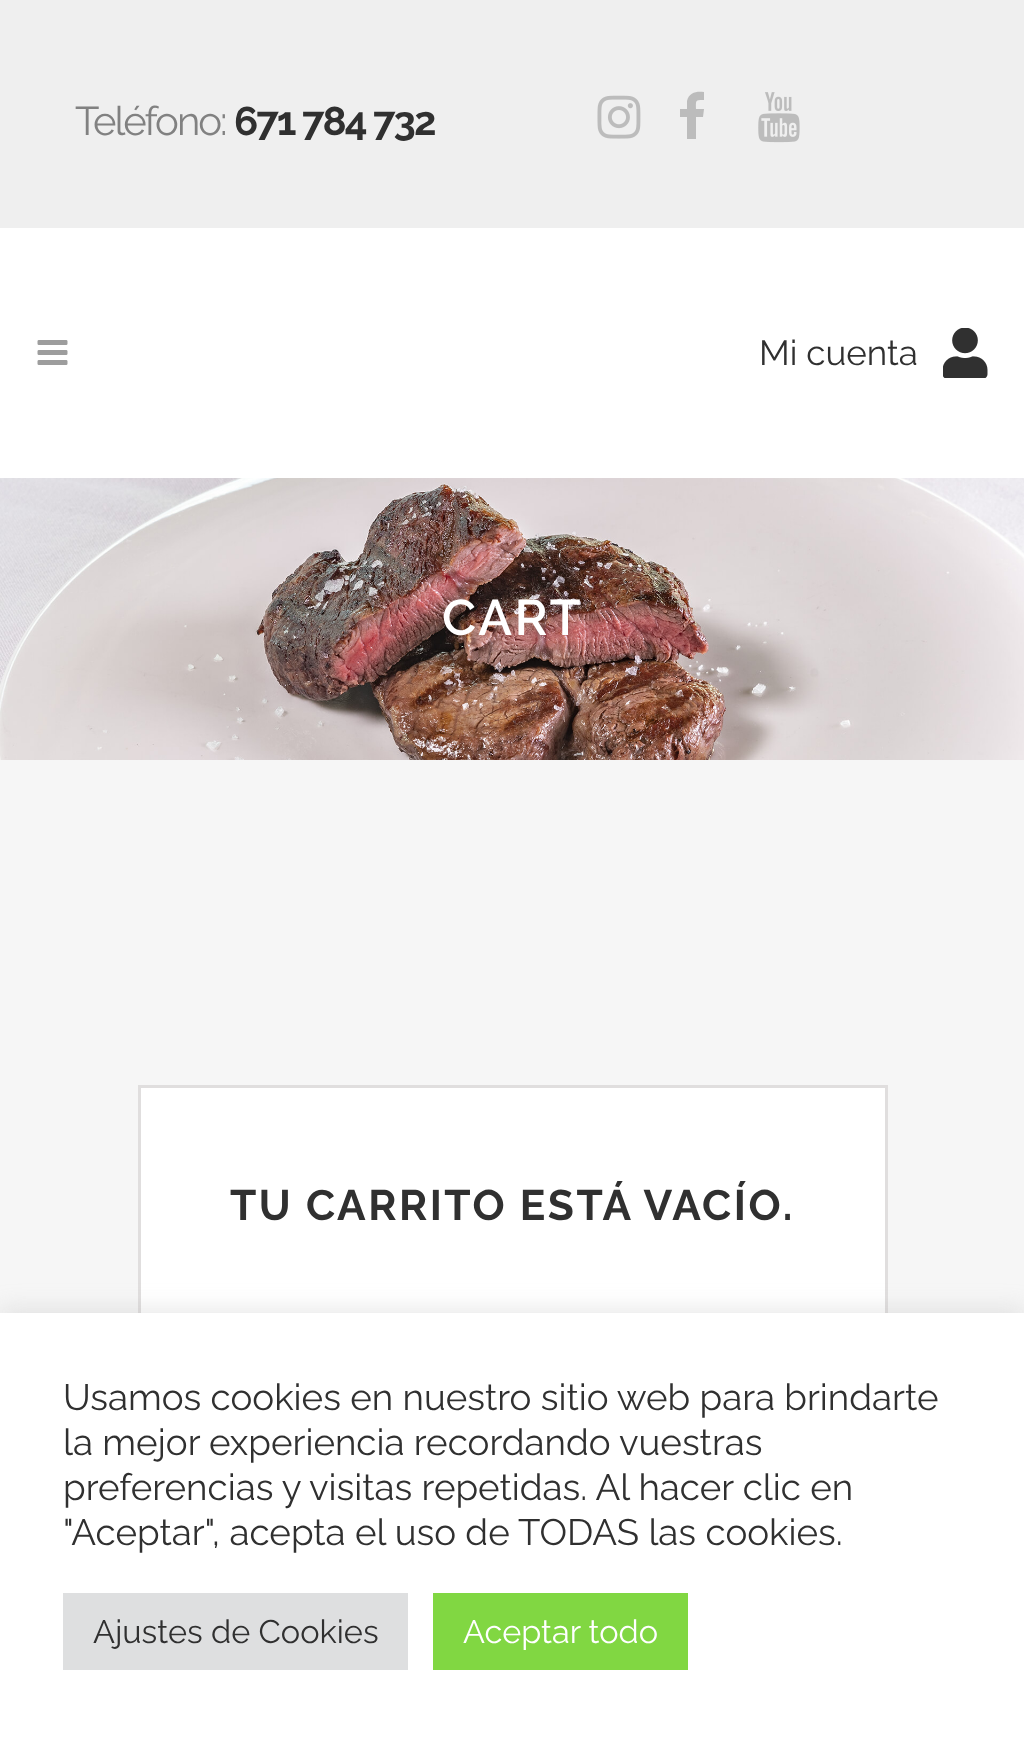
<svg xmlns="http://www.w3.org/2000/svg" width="1024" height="1743">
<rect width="100%" height="100%" fill="#f6f6f6"/>
<rect width="1024" height="228" fill="#efefef"/>
<text x="75" y="135" style="font-family:Raleway;font-size:40px;letter-spacing:-2px;fill:#818181">Teléfono:</text>
<text x="234" y="135" style="font-family:Raleway;font-size:40px;font-weight:bold;letter-spacing:-2px;fill:#303030">671 784 732</text>
<image x="597" y="95" width="44" height="44" href="media/1.png"/>
<path d="M704 92c-7-1-15 0-17 9v8h-7v8h7v22h9v-22h7l1-8h-8c0-9-1-9 8-9z" fill="#bcbcbc"/>
<image x="758" y="92" width="42" height="51" href="media/2.png"/>
<rect y="228" width="1024" height="250" fill="#fff"/>
<image x="37" y="340" width="31" height="25" href="media/3.png"/>
<text x="759" y="365" style="font-family:Raleway;font-size:35px;fill:#303030">Mi cuenta</text>
<image x="943" y="328" width="45" height="50" href="media/4.png"/>
<image x="0" y="478" width="1024" height="282" href="media/5.png"/>
<text x="442" y="635" style="font-family:Raleway;font-size:50px;font-weight:600;letter-spacing:2.5px;fill:#fff">CART</text>
<rect x="141" y="1088" width="744" height="225" fill="#fff"/>
<rect x="139.5" y="1086.5" width="747" height="237" fill="none" stroke="#e0dede" stroke-width="3"/>
<text x="230" y="1220" style="font-family:Raleway;font-size:42.5px;font-weight:bold;letter-spacing:2.5px;fill:#303030">TU CARRITO ESTÁ VACÍO.</text>
<rect y="1310" width="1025" height="433" fill="#acabab4d" filter="blur(12.5px)"/>
<rect y="1313" width="1024" height="430" fill="#fff"/>
<text x="63" y="1410" style="font-family:Raleway;font-size:36.7px;fill:#303030">Usamos cookies en nuestro sitio web para brindarte</text>
<text x="63" y="1455" style="font-family:Raleway;font-size:36.7px;fill:#303030">la mejor experiencia recordando vuestras</text>
<text x="63" y="1500" style="font-family:Raleway;font-size:36.7px;fill:#303030">preferencias y visitas repetidas. Al hacer clic en</text>
<text x="63" y="1545" style="font-family:Raleway;font-size:36.7px;fill:#303030">"Aceptar", acepta el uso de TODAS las cookies.</text>
<rect x="63" y="1593" width="345" height="77" fill="#dedfe0"/>
<text x="93" y="1643" style="font-family:Raleway;font-size:32.5px;fill:#303030">Ajustes de Cookies</text>
<rect x="433" y="1593" width="255" height="77" fill="#81d742"/>
<text x="463" y="1643" style="font-family:Raleway;font-size:32.5px;fill:#fff">Aceptar todo</text>
</svg>
